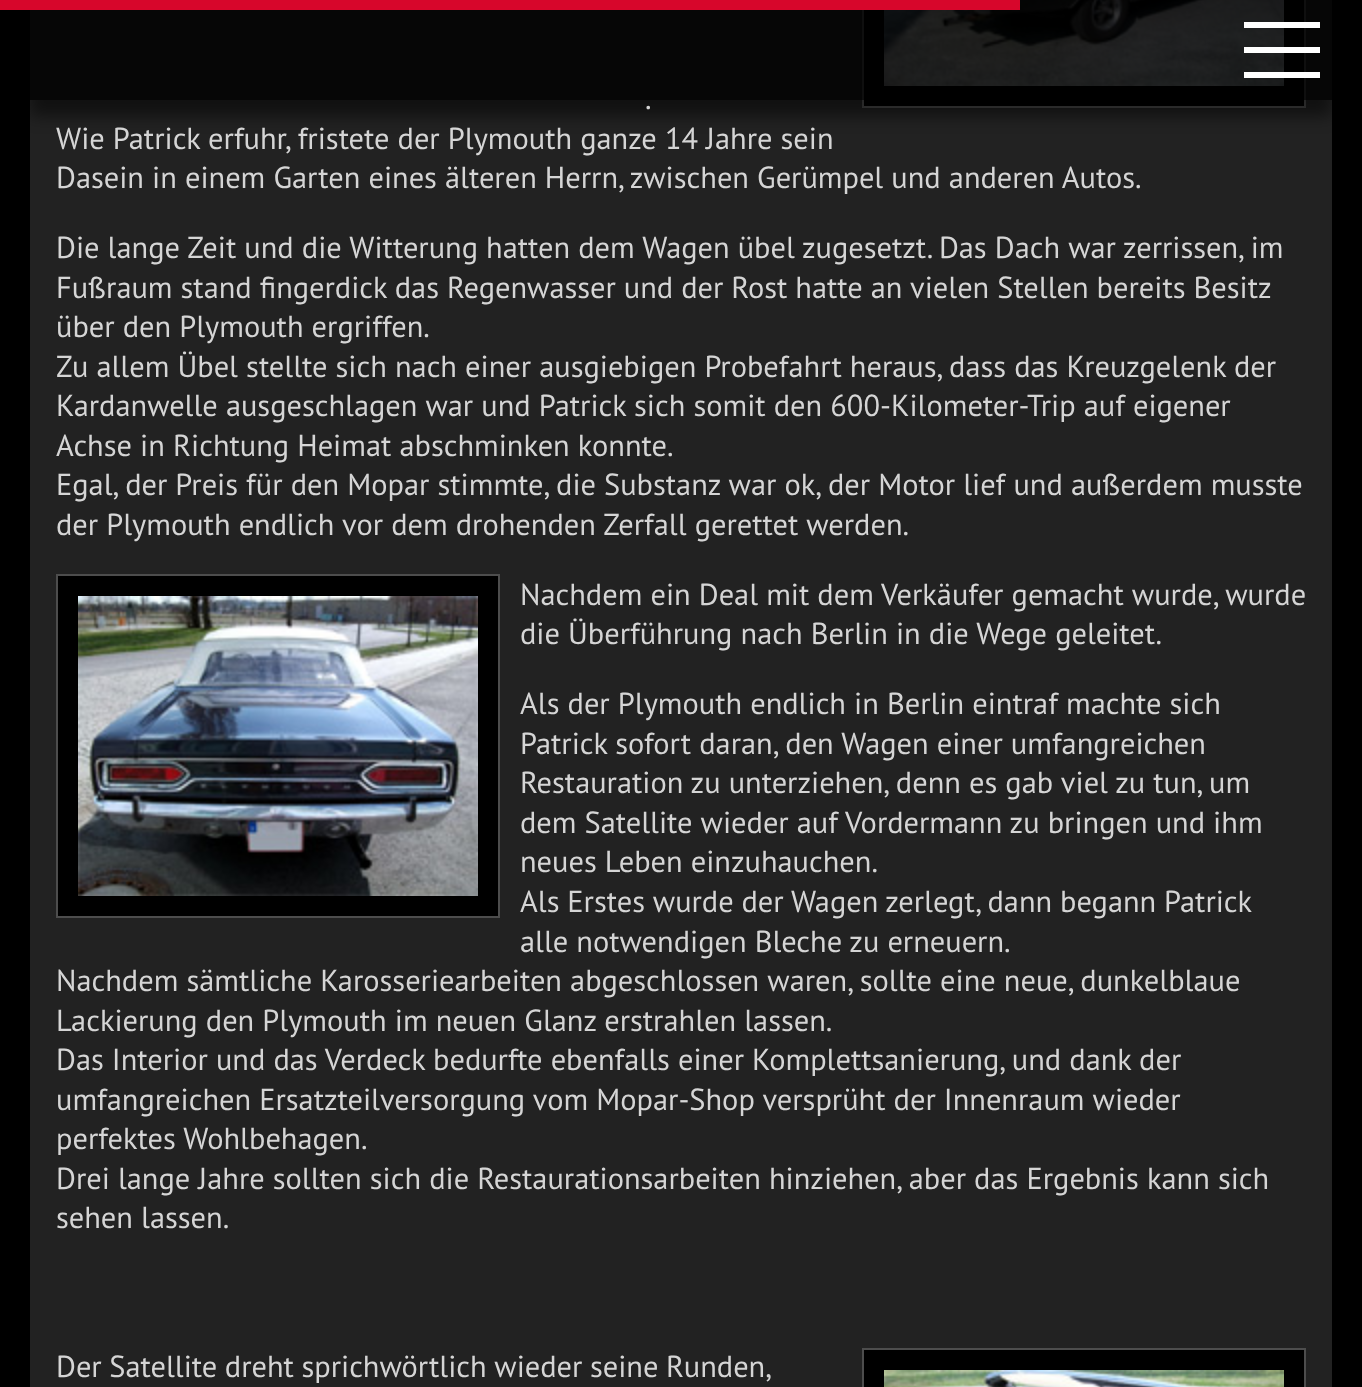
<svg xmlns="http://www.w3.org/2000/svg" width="1362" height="1387">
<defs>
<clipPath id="clip1"><path d="M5 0h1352v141h-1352zm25 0h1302v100h-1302z" clip-rule="evenodd"/></clipPath>
</defs>
<rect width="100%" height="100%" fill="#000"/>
<rect x="30" width="1302" height="1387" fill="#222"/>
<rect x="863" y="-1" width="442" height="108" fill="#000" stroke="#4d4d4d" stroke-width="2"/>
<image x="884" y="0" width="400" height="86" href="media/1.png"/>
<g clip-path="url(#clip1)">
<rect x="30" y="16" width="1302" height="100" fill="#00000080" filter="blur(8px)"/>
</g>
<rect x="30" width="1302" height="100" fill="#000000cc"/>
<rect width="1020" height="10" fill="#d7062b"/>
<path d="M1244 22v6h76v-6zm0 25v6h76v-6zm0 25v6h76v-6z" fill="#fff"/>
<text x="645" y="109" style="font-family:PT Sans;font-size:30.4px;fill:#d5d5d5">.</text>
<text x="56" y="149" style="font-family:PT Sans;font-size:30.4px;fill:#d5d5d5">Wie Patrick erfuhr, fristete der Plymouth ganze 14 Jahre sein</text>
<text x="56" y="188" style="font-family:PT Sans;font-size:30.4px;fill:#d5d5d5">Dasein in einem Garten eines älteren Herrn, zwischen Gerümpel und anderen Autos.</text>
<text x="56" y="258" style="font-family:PT Sans;font-size:30.4px;fill:#d5d5d5">Die lange Zeit und die Witterung hatten dem Wagen übel zugesetzt. Das Dach war zerrissen, im</text>
<text x="56" y="298" word-spacing="-0.1" style="font-family:PT Sans;font-size:30.4px;fill:#d5d5d5">Fußraum stand fingerdick das Regenwasser und der Rost hatte an vielen Stellen bereits Besitz</text>
<text x="56" y="337" style="font-family:PT Sans;font-size:30.4px;fill:#d5d5d5">über den Plymouth ergriffen.</text>
<text x="56" y="377" style="font-family:PT Sans;font-size:30.4px;fill:#d5d5d5">Zu allem Übel stellte sich nach einer ausgiebigen Probefahrt heraus, dass das Kreuzgelenk der</text>
<text x="56" y="416" style="font-family:PT Sans;font-size:30.4px;fill:#d5d5d5">Kardanwelle ausgeschlagen war und Patrick sich somit den 600-Kilometer-Trip auf eigener</text>
<text x="56" y="456" style="font-family:PT Sans;font-size:30.4px;fill:#d5d5d5">Achse in Richtung Heimat abschminken konnte.</text>
<text x="56" y="495" style="font-family:PT Sans;font-size:30.4px;fill:#d5d5d5">Egal, der Preis für den Mopar stimmte, die Substanz war ok, der Motor lief und außerdem musste</text>
<text x="56" y="535" style="font-family:PT Sans;font-size:30.4px;fill:#d5d5d5">der Plymouth endlich vor dem drohenden Zerfall gerettet werden.</text>
<rect x="57" y="575" width="442" height="342" fill="#000" stroke="#4d4d4d" stroke-width="2"/>
<image x="78" y="596" width="400" height="300" href="media/2.png"/>
<text x="520" y="605" style="font-family:PT Sans;font-size:30.4px;fill:#d5d5d5">Nachdem ein Deal mit dem Verkäufer gemacht wurde, wurde</text>
<text x="520" y="644" style="font-family:PT Sans;font-size:30.4px;fill:#d5d5d5">die Überführung nach Berlin in die Wege geleitet.</text>
<text x="520" y="714" style="font-family:PT Sans;font-size:30.4px;fill:#d5d5d5">Als der Plymouth endlich in Berlin eintraf machte sich</text>
<text x="520" y="754" style="font-family:PT Sans;font-size:30.4px;fill:#d5d5d5">Patrick sofort daran, den Wagen einer umfangreichen</text>
<text x="520" y="793" style="font-family:PT Sans;font-size:30.4px;fill:#d5d5d5">Restauration zu unterziehen, denn es gab viel zu tun, um</text>
<text x="520" y="833" style="font-family:PT Sans;font-size:30.4px;fill:#d5d5d5">dem Satellite wieder auf Vordermann zu bringen und ihm</text>
<text x="520" y="872" style="font-family:PT Sans;font-size:30.4px;fill:#d5d5d5">neues Leben einzuhauchen.</text>
<text x="520" y="912" word-spacing="-0.25" style="font-family:PT Sans;font-size:30.4px;fill:#d5d5d5">Als Erstes wurde der Wagen zerlegt, dann begann Patrick</text>
<text x="520" y="952" style="font-family:PT Sans;font-size:30.4px;fill:#d5d5d5">alle notwendigen Bleche zu erneuern.</text>
<text x="56" y="991" style="font-family:PT Sans;font-size:30.4px;fill:#d5d5d5">Nachdem sämtliche Karosseriearbeiten abgeschlossen waren, sollte eine neue, dunkelblaue</text>
<text x="56" y="1031" style="font-family:PT Sans;font-size:30.4px;fill:#d5d5d5">Lackierung den Plymouth im neuen Glanz erstrahlen lassen.</text>
<text x="56" y="1070" style="font-family:PT Sans;font-size:30.4px;fill:#d5d5d5">Das Interior und das Verdeck bedurfte ebenfalls einer Komplettsanierung, und dank der</text>
<text x="56" y="1110" style="font-family:PT Sans;font-size:30.4px;fill:#d5d5d5">umfangreichen Ersatzteilversorgung vom Mopar-Shop versprüht der Innenraum wieder</text>
<text x="56" y="1149" style="font-family:PT Sans;font-size:30.4px;fill:#d5d5d5">perfektes Wohlbehagen.</text>
<text x="56" y="1189" style="font-family:PT Sans;font-size:30.4px;fill:#d5d5d5">Drei lange Jahre sollten sich die Restaurationsarbeiten hinziehen, aber das Ergebnis kann sich</text>
<text x="56" y="1228" style="font-family:PT Sans;font-size:30.4px;fill:#d5d5d5">sehen lassen.</text>
<text x="56" y="1377" word-spacing="-0.5" style="font-family:PT Sans;font-size:30.4px;fill:#d5d5d5">Der Satellite dreht sprichwörtlich wieder seine Runden,</text>
<rect x="863" y="1349" width="442" height="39" fill="#000" stroke="#4d4d4d" stroke-width="2"/>
<image x="884" y="1370" width="400" height="17" href="media/3.png"/>
</svg>
